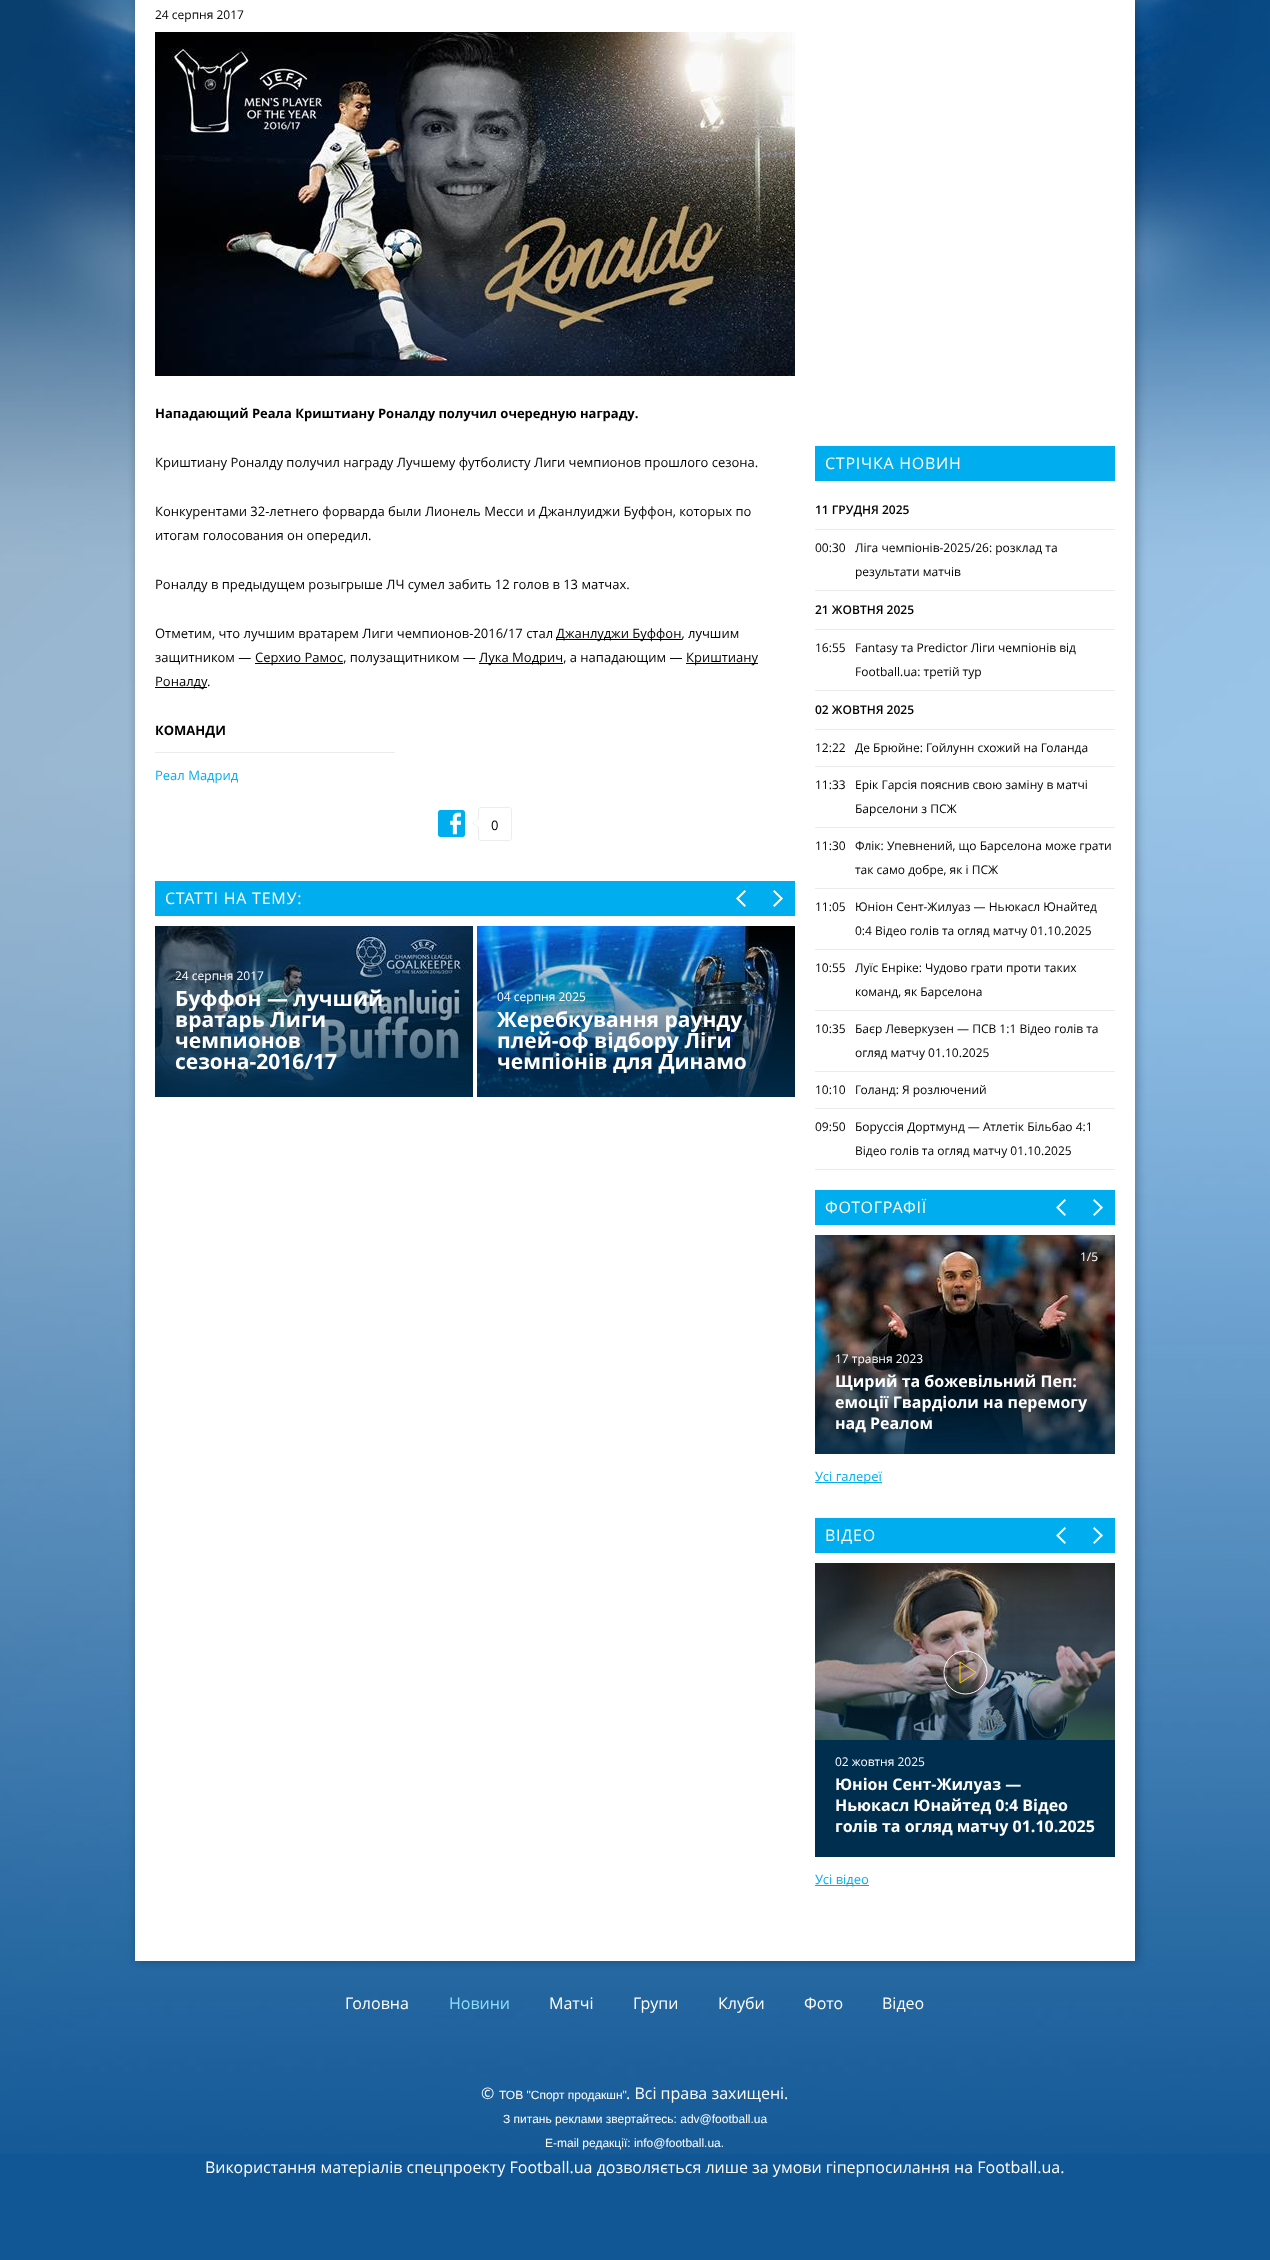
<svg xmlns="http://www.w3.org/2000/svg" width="1270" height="2260">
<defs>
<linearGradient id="g1" gradientUnits="userSpaceOnUse" x1="965" y1="1563" x2="965" y2="1857"><stop offset="0" stop-color="#002e4f" stop-opacity="0"/><stop offset="1" stop-color="#002e4f" stop-opacity="0.9"/></linearGradient>
</defs>
<rect width="100%" height="100%" fill="#115795"/>
<image x="0" y="0" width="1270" height="2154" href="media/1.png"/>
<rect x="137" y="-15" width="1000" height="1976" fill="#0304044d" filter="blur(5px)"/>
<rect x="135" width="1000" height="1961" fill="#fff"/>
<text x="155" y="19" style="font-family:Open Sans;font-size:12px;fill:#000">24 серпня 2017</text>
<image x="155" y="32" width="640" height="344" href="media/2.png"/>
<text x="155" y="418" style="font-family:Open Sans;font-size:13px;font-weight:bold;fill:#000">Нападающий Реала Криштиану Роналду получил очередную награду.</text>
<text x="155" y="467" style="font-family:Open Sans;font-size:13px;fill:#000">Криштиану Роналду получил награду Лучшему футболисту Лиги чемпионов прошлого сезона.</text>
<text x="155" y="516" style="font-family:Open Sans;font-size:13px;fill:#000">Конкурентами 32-летнего форварда были Лионель Месси и Джанлуиджи Буффон, которых по</text>
<text x="155" y="540" style="font-family:Open Sans;font-size:13px;fill:#000">итогам голосования он опередил.</text>
<text x="155" y="589" style="font-family:Open Sans;font-size:13px;fill:#000">Роналду в предыдущем розыгрыше ЛЧ сумел забить 12 голов в 13 матчах.</text>
<text x="155" y="638" style="font-family:Open Sans;font-size:13px;fill:#000">Отметим, что лучшим вратарем Лиги чемпионов-2016/17 стал</text>
<rect x="556" y="639" width="126" height="1" fill="#000"/>
<text x="556" y="638" style="font-family:Open Sans;font-size:13px;fill:#000">Джанлуджи Буффон, лучшим</text>
<text x="155" y="662" style="font-family:Open Sans;font-size:13px;fill:#000">защитником —</text>
<rect x="255" y="663" width="88" height="1" fill="#000"/>
<text x="255" y="662" style="font-family:Open Sans;font-size:13px;fill:#000">Серхио Рамос, полузащитником —</text>
<rect x="479" y="663" width="84" height="1" fill="#000"/>
<text x="479" y="662" style="font-family:Open Sans;font-size:13px;fill:#000">Лука Модрич, а нападающим —</text>
<rect x="686" y="663" width="72" height="1" fill="#000"/>
<text x="686" y="662" style="font-family:Open Sans;font-size:13px;fill:#000">Криштиану</text>
<rect x="155" y="687" width="52" height="1" fill="#000"/>
<text x="155" y="686" style="font-family:Open Sans;font-size:13px;fill:#000">Роналду.</text>
<rect x="155" y="752" width="240" height="1" fill="#ebebeb"/>
<text x="155" y="735" style="font-family:Open Sans;font-size:13px;font-weight:bold;fill:#000">КОМАНДИ</text>
<text x="155" y="780" style="font-family:Open Sans;font-size:13px;fill:#00aeef">Реал Мадрид</text>
<image x="438" y="810" width="27" height="27" href="media/3.png"/>
<rect x="478.5" y="807.5" width="33" height="33" rx="2.5" fill="none" stroke="#eeeded"/>
<path d="M479 818v10l-7-5z" fill="#eeeded"/>
<path d="M480 818v10l-7-5z" fill="#fff"/>
<text x="491" y="830" style="font-family:Open Sans;font-size:13px;fill:#000">0</text>
<rect x="155" y="881" width="640" height="35" fill="#00aeef"/>
<text x="165" y="904" style="font-family:Open Sans;font-size:16px;letter-spacing:0.75px;fill:#fff">СТАТТІ НА ТЕМУ:</text>
<image x="736" y="890" width="10" height="17" href="media/4.png"/>
<image x="773" y="890" width="10" height="17" href="media/5.png"/>
<image x="155" y="926" width="318" height="171" href="media/6.png"/>
<text x="175" y="980" style="font-family:Open Sans;font-size:12px;fill:#fff">24 серпня 2017</text>
<text x="175" y="1006" style="font-family:Open Sans;font-size:21px;font-weight:bold;fill:#fff">Буффон — лучший</text>
<text x="175" y="1027" style="font-family:Open Sans;font-size:21px;font-weight:bold;fill:#fff">вратарь Лиги</text>
<text x="175" y="1048" style="font-family:Open Sans;font-size:21px;font-weight:bold;fill:#fff">чемпионов</text>
<text x="175" y="1069" style="font-family:Open Sans;font-size:21px;font-weight:bold;fill:#fff">сезона-2016/17</text>
<image x="477" y="926" width="318" height="171" href="media/7.png"/>
<text x="497" y="1001" style="font-family:Open Sans;font-size:12px;fill:#fff">04 серпня 2025</text>
<text x="497" y="1027" style="font-family:Open Sans;font-size:21px;font-weight:bold;fill:#fff">Жеребкування раунду</text>
<text x="497" y="1048" style="font-family:Open Sans;font-size:21px;font-weight:bold;fill:#fff">плей-оф відбору Ліги</text>
<text x="497" y="1069" style="font-family:Open Sans;font-size:21px;font-weight:bold;fill:#fff">чемпіонів для Динамо</text>
<rect x="815" y="446" width="300" height="35" fill="#00aeef"/>
<text x="825" y="469" style="font-family:Open Sans;font-size:16px;letter-spacing:0.75px;fill:#fff">СТРІЧКА НОВИН</text>
<rect x="815" y="529" width="300" height="1" fill="#ebebeb"/>
<text x="815" y="514" style="font-family:Open Sans;font-size:12px;font-weight:600;fill:#000">11 ГРУДНЯ 2025</text>
<rect x="815" y="590" width="300" height="1" fill="#ebebeb"/>
<text x="815" y="552" style="font-family:Open Sans;font-size:12px;fill:#000">00:30</text>
<text x="855" y="552" style="font-family:Open Sans;font-size:12px;fill:#000">Ліга чемпіонів-2025/26: розклад та</text>
<text x="855" y="576" style="font-family:Open Sans;font-size:12px;fill:#000">результати матчів</text>
<rect x="815" y="629" width="300" height="1" fill="#ebebeb"/>
<text x="815" y="614" style="font-family:Open Sans;font-size:12px;font-weight:600;fill:#000">21 ЖОВТНЯ 2025</text>
<rect x="815" y="690" width="300" height="1" fill="#ebebeb"/>
<text x="815" y="652" style="font-family:Open Sans;font-size:12px;fill:#000">16:55</text>
<text x="855" y="652" style="font-family:Open Sans;font-size:12px;fill:#000">Fantasy та Predictor Ліги чемпіонів від</text>
<text x="855" y="676" style="font-family:Open Sans;font-size:12px;fill:#000">Football.ua: третій тур</text>
<rect x="815" y="729" width="300" height="1" fill="#ebebeb"/>
<text x="815" y="714" style="font-family:Open Sans;font-size:12px;font-weight:600;fill:#000">02 ЖОВТНЯ 2025</text>
<rect x="815" y="766" width="300" height="1" fill="#ebebeb"/>
<text x="815" y="752" style="font-family:Open Sans;font-size:12px;fill:#000">12:22</text>
<text x="855" y="752" style="font-family:Open Sans;font-size:12px;fill:#000">Де Брюйне: Гойлунн схожий на Голанда</text>
<rect x="815" y="827" width="300" height="1" fill="#ebebeb"/>
<text x="815" y="789" style="font-family:Open Sans;font-size:12px;fill:#000">11:33</text>
<text x="855" y="789" style="font-family:Open Sans;font-size:12px;fill:#000">Ерік Гарсія пояснив свою заміну в матчі</text>
<text x="855" y="813" style="font-family:Open Sans;font-size:12px;fill:#000">Барселони з ПСЖ</text>
<rect x="815" y="888" width="300" height="1" fill="#ebebeb"/>
<text x="815" y="850" style="font-family:Open Sans;font-size:12px;fill:#000">11:30</text>
<text x="855" y="850" style="font-family:Open Sans;font-size:12px;fill:#000">Флік: Упевнений, що Барселона може грати</text>
<text x="855" y="874" style="font-family:Open Sans;font-size:12px;fill:#000">так само добре, як і ПСЖ</text>
<rect x="815" y="949" width="300" height="1" fill="#ebebeb"/>
<text x="815" y="911" style="font-family:Open Sans;font-size:12px;fill:#000">11:05</text>
<text x="855" y="911" style="font-family:Open Sans;font-size:12px;fill:#000">Юніон Сент-Жилуаз — Ньюкасл Юнайтед</text>
<text x="855" y="935" style="font-family:Open Sans;font-size:12px;fill:#000">0:4 Відео голів та огляд матчу 01.10.2025</text>
<rect x="815" y="1010" width="300" height="1" fill="#ebebeb"/>
<text x="815" y="972" style="font-family:Open Sans;font-size:12px;fill:#000">10:55</text>
<text x="855" y="972" style="font-family:Open Sans;font-size:12px;fill:#000">Луїс Енріке: Чудово грати проти таких</text>
<text x="855" y="996" style="font-family:Open Sans;font-size:12px;fill:#000">команд, як Барселона</text>
<rect x="815" y="1071" width="300" height="1" fill="#ebebeb"/>
<text x="815" y="1033" style="font-family:Open Sans;font-size:12px;fill:#000">10:35</text>
<text x="855" y="1033" style="font-family:Open Sans;font-size:12px;fill:#000">Баєр Леверкузен — ПСВ 1:1 Відео голів та</text>
<text x="855" y="1057" style="font-family:Open Sans;font-size:12px;fill:#000">огляд матчу 01.10.2025</text>
<rect x="815" y="1108" width="300" height="1" fill="#ebebeb"/>
<text x="815" y="1094" style="font-family:Open Sans;font-size:12px;fill:#000">10:10</text>
<text x="855" y="1094" style="font-family:Open Sans;font-size:12px;fill:#000">Голанд: Я розлючений</text>
<rect x="815" y="1169" width="300" height="1" fill="#ebebeb"/>
<text x="815" y="1131" style="font-family:Open Sans;font-size:12px;fill:#000">09:50</text>
<text x="855" y="1131" style="font-family:Open Sans;font-size:12px;fill:#000">Боруссія Дортмунд — Атлетік Більбао 4:1</text>
<text x="855" y="1155" style="font-family:Open Sans;font-size:12px;fill:#000">Відео голів та огляд матчу 01.10.2025</text>
<rect x="815" y="1190" width="300" height="35" fill="#00aeef"/>
<text x="825" y="1213" style="font-family:Open Sans;font-size:16px;letter-spacing:0.75px;fill:#fff">ФОТОГРАФІЇ</text>
<image x="1056" y="1199" width="10" height="17" href="media/4.png"/>
<image x="1093" y="1199" width="10" height="17" href="media/5.png"/>
<image x="815" y="1235" width="300" height="219" href="media/8.png"/>
<text x="1080" y="1261" style="font-family:Open Sans;font-size:12px;fill:#fff">1/5</text>
<text x="835" y="1363" style="font-family:Open Sans;font-size:12px;fill:#fff">17 травня 2023</text>
<text x="835" y="1387" style="font-family:Open Sans;font-size:16px;font-weight:bold;fill:#fff">Щирий та божевільний Пеп:</text>
<text x="835" y="1408" style="font-family:Open Sans;font-size:16px;font-weight:bold;fill:#fff">емоції Гвардіоли на перемогу</text>
<text x="835" y="1429" style="font-family:Open Sans;font-size:16px;font-weight:bold;fill:#fff">над Реалом</text>
<rect x="815" y="1482" width="67" height="1" fill="#00aeef"/>
<text x="815" y="1481" style="font-family:Open Sans;font-size:13px;fill:#00aeef">Усі галереї</text>
<rect x="815" y="1518" width="300" height="35" fill="#00aeef"/>
<text x="825" y="1541" style="font-family:Open Sans;font-size:16px;letter-spacing:0.75px;fill:#fff">ВІДЕО</text>
<image x="1056" y="1527" width="10" height="17" href="media/4.png"/>
<image x="1093" y="1527" width="10" height="17" href="media/5.png"/>
<image x="815" y="1563" width="300" height="177" href="media/9.png"/>
<rect x="815" y="1570" width="300" height="170" fill="url(#g1)"/>
<circle cx="965.5" cy="1672.5" r="21.5" fill="none" stroke="#fff"/>
<path d="M960 1682v-20l16 10.5l-16 10.5z" fill="none" stroke="#fed700"/>
<rect x="815" y="1740" width="300" height="117" fill="#002e4f"/>
<text x="835" y="1766" style="font-family:Open Sans;font-size:12px;fill:#fff">02 жовтня 2025</text>
<text x="835" y="1790" style="font-family:Open Sans;font-size:16px;font-weight:bold;fill:#fff">Юніон Сент-Жилуаз —</text>
<text x="835" y="1811" style="font-family:Open Sans;font-size:16px;font-weight:bold;fill:#fff">Ньюкасл Юнайтед 0:4 Відео</text>
<text x="835" y="1832" style="font-family:Open Sans;font-size:16px;font-weight:bold;fill:#fff">голів та огляд матчу 01.10.2025</text>
<rect x="815" y="1885" width="54" height="1" fill="#00aeef"/>
<text x="815" y="1884" style="font-family:Open Sans;font-size:13px;fill:#00aeef">Усі відео</text>
<text x="345" y="2009" style="font-family:Open Sans;font-size:16px;fill:#fff">Головна</text>
<text x="449" y="2009" style="font-family:Open Sans;font-size:16px;fill:#8de0ff">Новини</text>
<text x="549" y="2009" style="font-family:Open Sans;font-size:16px;fill:#fff">Матчі</text>
<text x="633" y="2009" style="font-family:Open Sans;font-size:16px;fill:#fff">Групи</text>
<text x="718" y="2009" style="font-family:Open Sans;font-size:16px;fill:#fff">Клуби</text>
<text x="804" y="2009" style="font-family:Open Sans;font-size:16px;fill:#fff">Фото</text>
<text x="882" y="2009" style="font-family:Open Sans;font-size:16px;fill:#fff">Відео</text>
<text x="481" y="2099" style="font-family:Open Sans;font-size:16px;fill:#fff">©</text>
<text x="499" y="2099" style="font-family:Liberation Sans;font-size:12px;fill:#fff">ТОВ "Спорт продакшн"</text>
<text x="626" y="2099" style="font-family:Open Sans;font-size:16px;fill:#fff">. Всі права захищені.</text>
<text x="503" y="2123" style="font-family:Liberation Sans;font-size:12px;fill:#fff">З питань реклами звертайтесь: adv@football.ua</text>
<text x="545" y="2147" style="font-family:Liberation Sans;font-size:12px;fill:#fff">E-mail редакції: info@football.ua.</text>
<text x="205" y="2173" style="font-family:Open Sans;font-size:16px;fill:#fff">Використання матеріалів спецпроекту Football.ua дозволяється лише за умови гіперпосилання на Football.ua.</text>
</svg>
